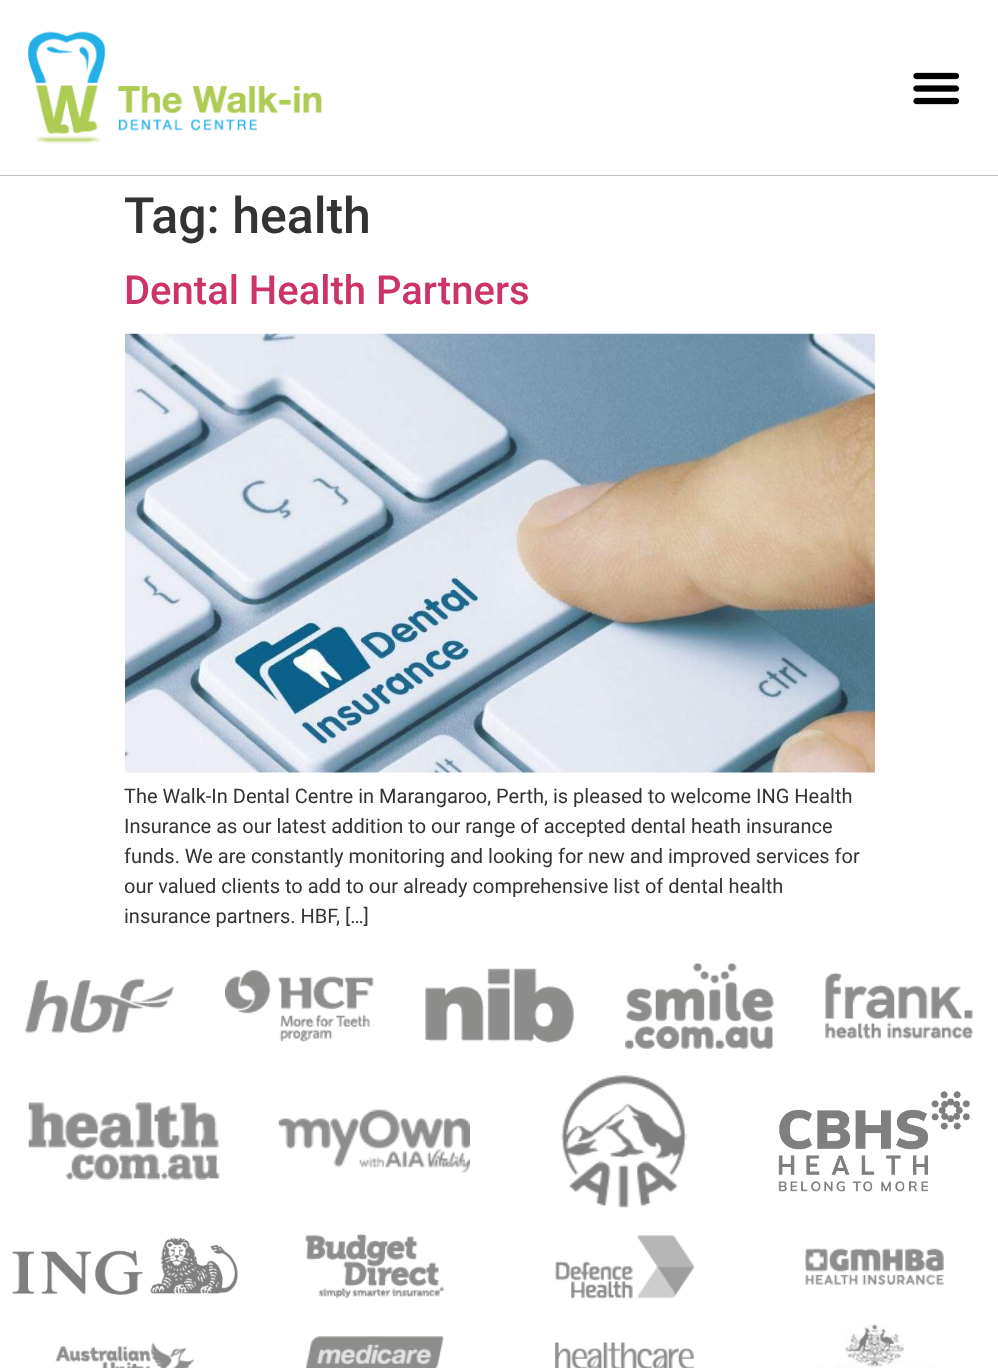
<svg xmlns="http://www.w3.org/2000/svg" width="998" height="1368">
<rect width="100%" height="100%" fill="#fff"/>
<rect y="175" width="998" height="1" fill="#bfbfbf"/>
<image x="28" y="31" width="294" height="113" href="media/1.png"/>
<image x="913" y="72" width="47" height="33" href="media/2.png"/>
<text x="124" y="233" style="font-family:Roboto;font-size:50px;font-weight:500;fill:#333">Tag: health</text>
<text x="124" y="304" style="font-family:Roboto;font-size:40px;font-weight:500;fill:#c36">Dental Health Partners</text>
<image x="125" y="333" width="750" height="440" href="media/3.png"/>
<text x="124" y="803" style="font-family:Roboto;font-size:20px;fill:#333">The Walk-In Dental Centre in Marangaroo, Perth, is pleased to welcome ING Health</text>
<text x="124" y="833" style="font-family:Roboto;font-size:20px;fill:#333">Insurance as our latest addition to our range of accepted dental heath insurance</text>
<text x="124" y="863" style="font-family:Roboto;font-size:20px;fill:#333">funds. We are constantly monitoring and looking for new and improved services for</text>
<text x="124" y="893" style="font-family:Roboto;font-size:20px;fill:#333">our valued clients to add to our already comprehensive list of dental health</text>
<text x="124" y="923" style="font-family:Roboto;font-size:20px;fill:#333">insurance partners. HBF, […]</text>
<image x="25" y="978" width="149" height="55" href="media/4.png"/>
<image x="225" y="970" width="149" height="72" href="media/5.png"/>
<image x="425" y="968" width="149" height="75" href="media/6.png"/>
<image x="625" y="962" width="149" height="87" href="media/7.png"/>
<image x="825" y="972" width="148" height="67" href="media/8.png"/>
<image x="28" y="1102" width="192" height="78" href="media/9.png"/>
<image x="278" y="1109" width="192" height="64" href="media/10.png"/>
<image x="561" y="1075" width="126" height="133" href="media/11.png"/>
<image x="778" y="1091" width="192" height="101" href="media/12.png"/>
<image x="12" y="1237" width="226" height="58" href="media/13.png"/>
<image x="305" y="1233" width="139" height="66" href="media/14.png"/>
<image x="555" y="1235" width="139" height="64" href="media/15.png"/>
<image x="805" y="1248" width="139" height="37" href="media/16.png"/>
<image x="55" y="1342" width="139" height="26" href="media/17.png"/>
<image x="305" y="1336" width="139" height="32" href="media/18.png"/>
<image x="555" y="1342" width="139" height="26" href="media/19.png"/>
<image x="816" y="1323" width="118" height="45" href="media/20.png"/>
</svg>
